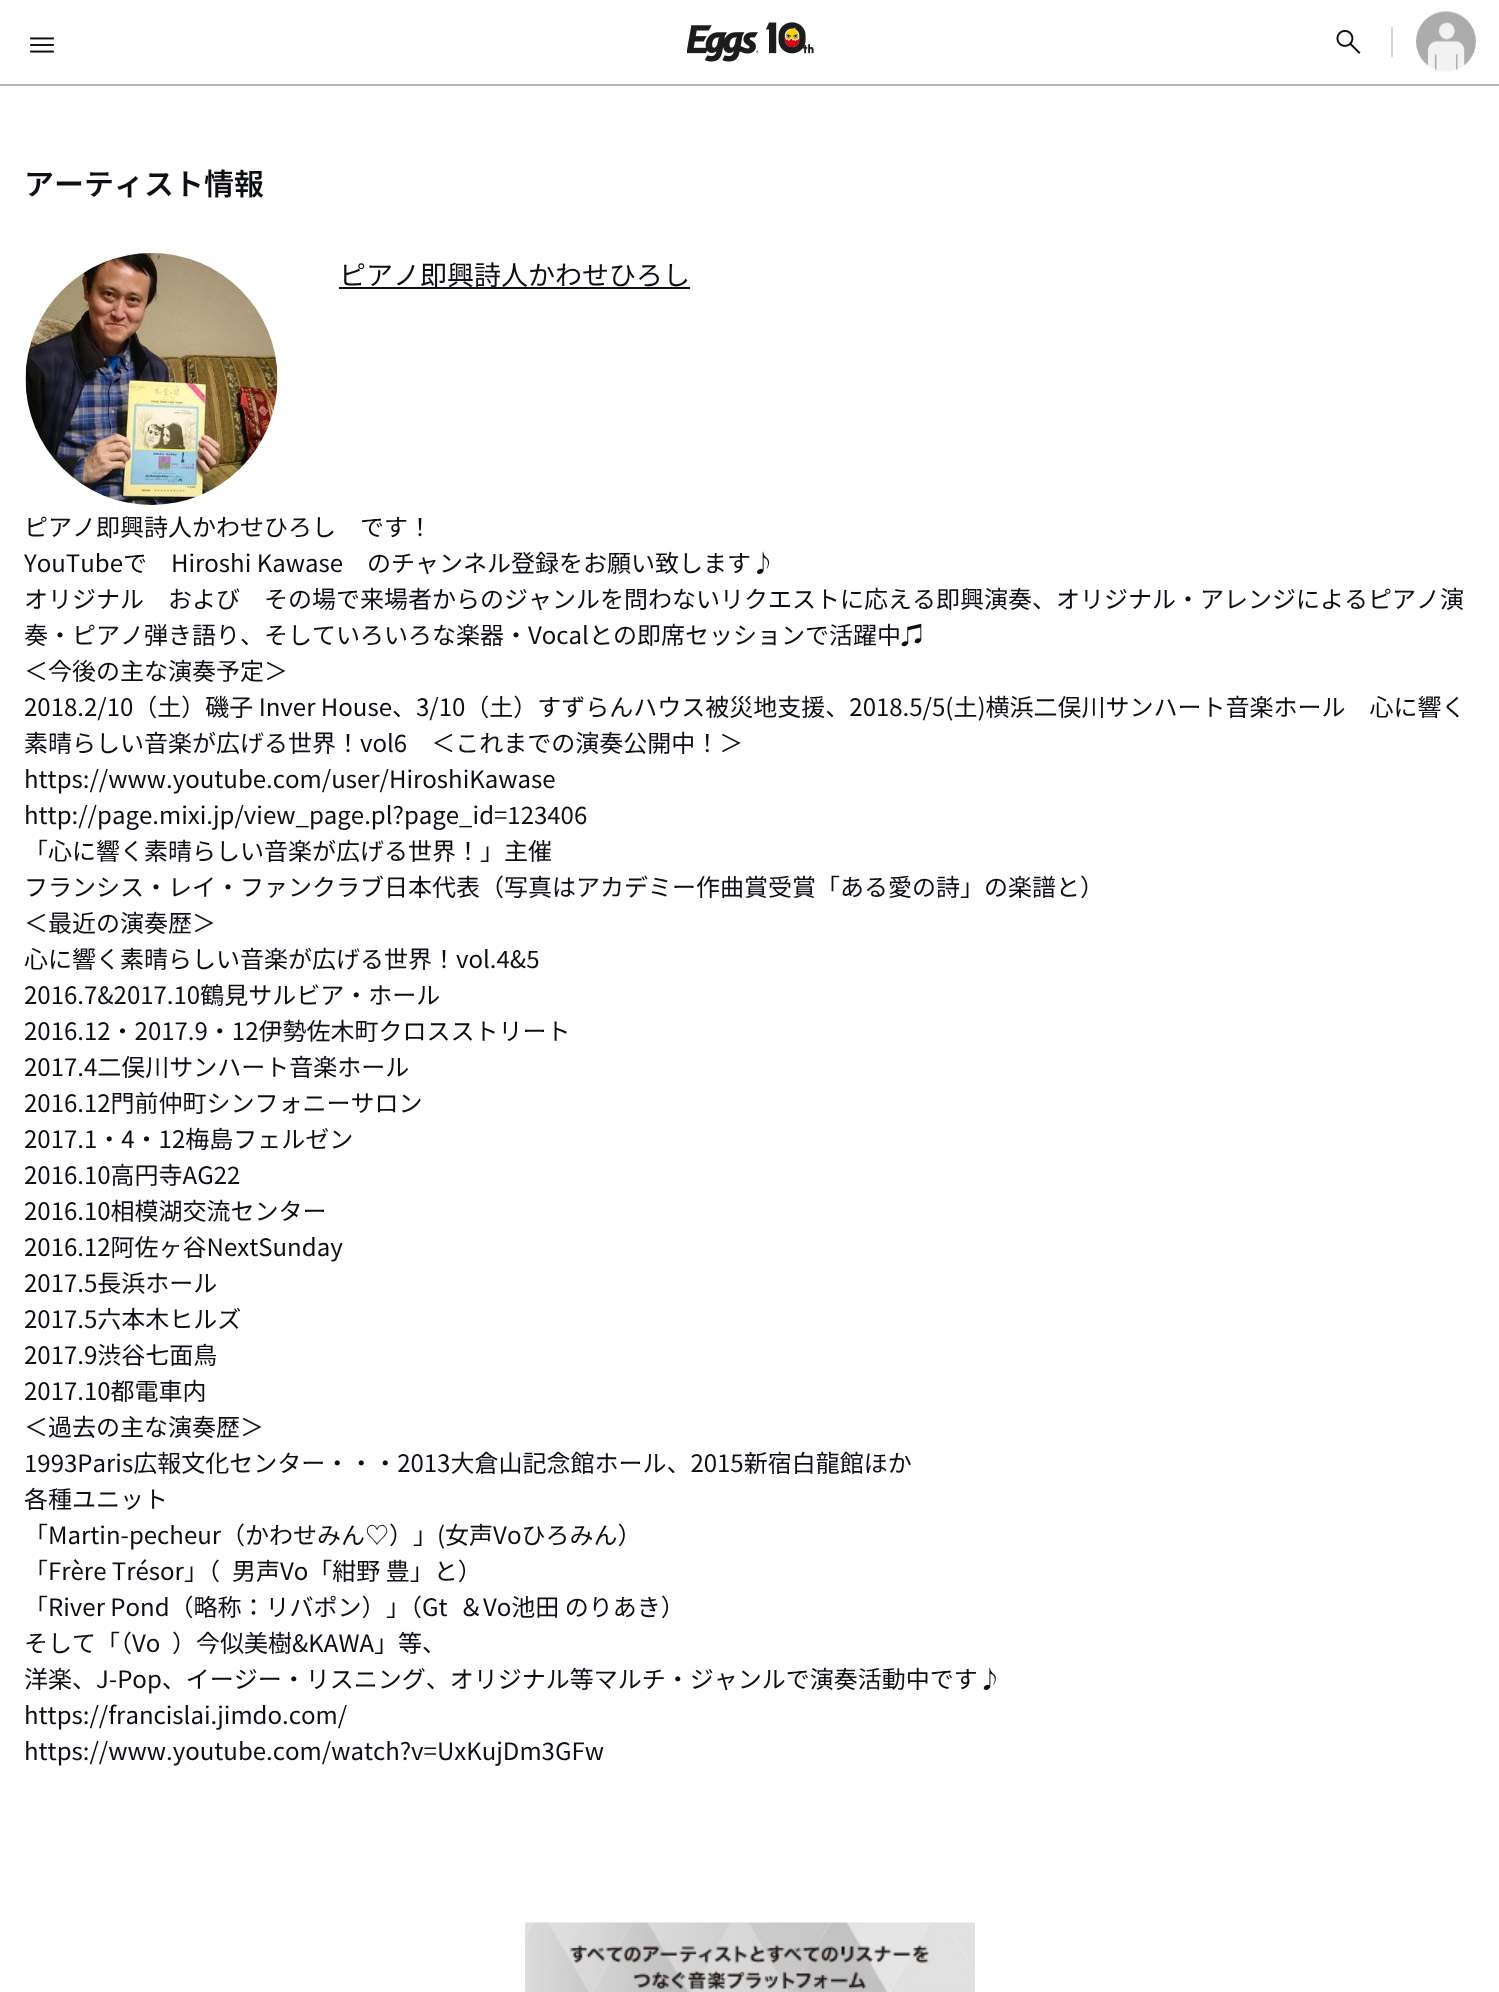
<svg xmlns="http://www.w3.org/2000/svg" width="1499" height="1992">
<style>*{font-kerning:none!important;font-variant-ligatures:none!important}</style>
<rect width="100%" height="100%" fill="#fff"/>
<rect y="84" width="1499" height="2" fill="#afb8c1"/>
<image x="30" y="37" width="24" height="16" href="media/1.png"/>
<image x="687" y="22" width="127" height="40" href="media/2.png"/>
<image x="1336" y="30" width="25" height="24" href="media/3.png"/>
<rect x="1391" y="27" width="2" height="30" fill="#d0d7de"/>
<image x="1416" y="11" width="60" height="61" href="media/4.png"/>
<text x="24" y="195" style="font-family:Noto Sans JP;font-size:30px;font-weight:600;fill:#0d0f14">アーティスト情報</text>
<image x="25" y="253" width="253" height="252" href="media/5.png"/>
<rect x="339" y="287" width="351" height="2" fill="#0d0f14"/>
<text x="339" y="285" style="font-family:Noto Sans JP;font-size:27px;fill:#0d0f14">ピアノ即興詩人かわせひろし</text>
<text x="24" y="536" style="font-family:Noto Sans JP;font-size:24px;fill:#0d0f14">ピアノ即興詩人かわせひろし　です！</text>
<text x="24" y="572" style="font-family:Noto Sans JP;font-size:24px;fill:#0d0f14">YouTubeで　Hiroshi Kawase　のチャン</text>
<text x="463" y="572" style="font-family:Noto Sans JP;font-size:24px;fill:#0d0f14">ネル登録をお願い致します♪</text>
<text x="24" y="608" style="font-family:Noto Sans JP;font-size:24px;fill:#0d0f14">オリジナル　および　その場で来場者からのジャンルを問わないリクエストに応える即興演奏、オリジナル・アレンジによるピア</text>
<text x="1416" y="608" style="font-family:Noto Sans JP;font-size:24px;fill:#0d0f14">ノ演</text>
<text x="24" y="644" style="font-family:Noto Sans JP;font-size:24px;fill:#0d0f14">奏・ピアノ弾き語り、そしていろいろな楽器・Vocal</text>
<text x="589" y="644" style="font-family:Noto Sans JP;font-size:24px;fill:#0d0f14">との即席セッションで活躍中♫</text>
<text x="24" y="680" style="font-family:Noto Sans JP;font-size:24px;fill:#0d0f14">＜今後の主な演奏予定＞</text>
<text x="24" y="716" style="font-family:Noto Sans JP;font-size:24px;fill:#0d0f14">2018.2/10（土）磯子 Inver House、3/10（土）すずらんハウス被災地支援、2018.5/5(土)横浜二俣川サンハート音楽ホール　心に響く</text>
<text x="24" y="752" style="font-family:Noto Sans JP;font-size:24px;fill:#0d0f14">素晴らしい音楽が広げる世界！vol6　＜これまでの演奏公開中！＞</text>
<text x="24" y="788" style="font-family:Noto Sans JP;font-size:24px;fill:#0d0f14">https://www.youtube.com/user/HiroshiKawase</text>
<text x="24" y="824" style="font-family:Noto Sans JP;font-size:24px;fill:#0d0f14">http://page.mixi.jp/view_page.pl?page_id=123406</text>
<text x="24" y="860" style="font-family:Noto Sans JP;font-size:24px;fill:#0d0f14">「心に響く素晴らしい音楽が広げる世界！」主催</text>
<text x="24" y="896" style="font-family:Noto Sans JP;font-size:24px;fill:#0d0f14">フランシス・レイ・ファンクラブ日本代表（写真はアカデミー作曲賞受賞「ある愛の詩」の楽譜と）</text>
<text x="24" y="932" style="font-family:Noto Sans JP;font-size:24px;fill:#0d0f14">＜最近の演奏歴＞</text>
<text x="24" y="968" style="font-family:Noto Sans JP;font-size:24px;fill:#0d0f14">心に響く素晴らしい音楽が広げる世界！vol.4&amp;5</text>
<text x="24" y="1004" style="font-family:Noto Sans JP;font-size:24px;fill:#0d0f14">2016.7&amp;2017.10鶴見サルビア・ホール</text>
<text x="24" y="1040" style="font-family:Noto Sans JP;font-size:24px;fill:#0d0f14">2016.12・2017.9・12伊勢佐木町クロスストリート</text>
<text x="24" y="1076" style="font-family:Noto Sans JP;font-size:24px;fill:#0d0f14">2017.4二俣川サンハート音楽ホール</text>
<text x="24" y="1112" style="font-family:Noto Sans JP;font-size:24px;fill:#0d0f14">2016.12門前仲町シンフォニーサロン</text>
<text x="24" y="1148" style="font-family:Noto Sans JP;font-size:24px;fill:#0d0f14">2017.1・4・12梅島フェルゼン</text>
<text x="24" y="1184" style="font-family:Noto Sans JP;font-size:24px;fill:#0d0f14">2016.10高円寺AG22</text>
<text x="24" y="1220" style="font-family:Noto Sans JP;font-size:24px;fill:#0d0f14">2016.10相模湖交流センター</text>
<text x="24" y="1256" style="font-family:Noto Sans JP;font-size:24px;fill:#0d0f14">2016.12阿佐ヶ谷NextSunday</text>
<text x="24" y="1292" style="font-family:Noto Sans JP;font-size:24px;fill:#0d0f14">2017.5長浜ホール</text>
<text x="24" y="1328" style="font-family:Noto Sans JP;font-size:24px;fill:#0d0f14">2017.5六本木ヒルズ</text>
<text x="24" y="1364" style="font-family:Noto Sans JP;font-size:24px;fill:#0d0f14">2017.9渋谷七面鳥</text>
<text x="24" y="1400" style="font-family:Noto Sans JP;font-size:24px;fill:#0d0f14">2017.10都電車内</text>
<text x="24" y="1436" style="font-family:Noto Sans JP;font-size:24px;fill:#0d0f14">＜過去の主な演奏歴＞</text>
<text x="24" y="1472" style="font-family:Noto Sans JP;font-size:24px;fill:#0d0f14">1993Paris広報文化センター・・・2013大倉山記念館ホール、2015新宿白龍館ほか</text>
<text x="24" y="1508" style="font-family:Noto Sans JP;font-size:24px;fill:#0d0f14">各種ユニット</text>
<text x="24" y="1544" style="font-family:Noto Sans JP;font-size:24px;fill:#0d0f14">「Martin-pecheur（かわせみん♡）</text>
<text x="413" y="1544" style="font-family:Noto Sans JP;font-size:24px;fill:#0d0f14">」(女声Voひろみん）</text>
<text x="24" y="1580" style="font-family:Noto Sans JP;font-size:24px;fill:#0d0f14">「Frère Trésor」（</text>
<text x="232" y="1580" style="font-family:Noto Sans JP;font-size:24px;fill:#0d0f14">男声Vo「紺野 豊」と）</text>
<text x="24" y="1616" style="font-family:Noto Sans JP;font-size:24px;fill:#0d0f14">「River Pond（略称：リバポン）</text>
<text x="386" y="1616" style="font-family:Noto Sans JP;font-size:24px;fill:#0d0f14">」（Gt</text>
<text x="459" y="1616" style="font-family:Noto Sans JP;font-size:24px;fill:#0d0f14">＆Vo池田 のりあき）</text>
<text x="24" y="1652" style="font-family:Noto Sans JP;font-size:24px;fill:#0d0f14">そして「（Vo</text>
<text x="172" y="1652" style="font-family:Noto Sans JP;font-size:24px;fill:#0d0f14">）今似美樹&amp;KAWA」等、</text>
<text x="24" y="1688" style="font-family:Noto Sans JP;font-size:24px;fill:#0d0f14">洋楽、J-Pop、イージー・リスニング、オリジナル等マルチ・ジャンルで演奏活動中です♪</text>
<text x="24" y="1724" style="font-family:Noto Sans JP;font-size:24px;fill:#0d0f14">https://francislai.jimdo.com/</text>
<text x="24" y="1760" style="font-family:Noto Sans JP;font-size:24px;fill:#0d0f14">https://www.youtube.com/watch?v=UxKujDm3GFw</text>
<image x="525" y="1922" width="450" height="70" href="media/6.png"/>
</svg>
